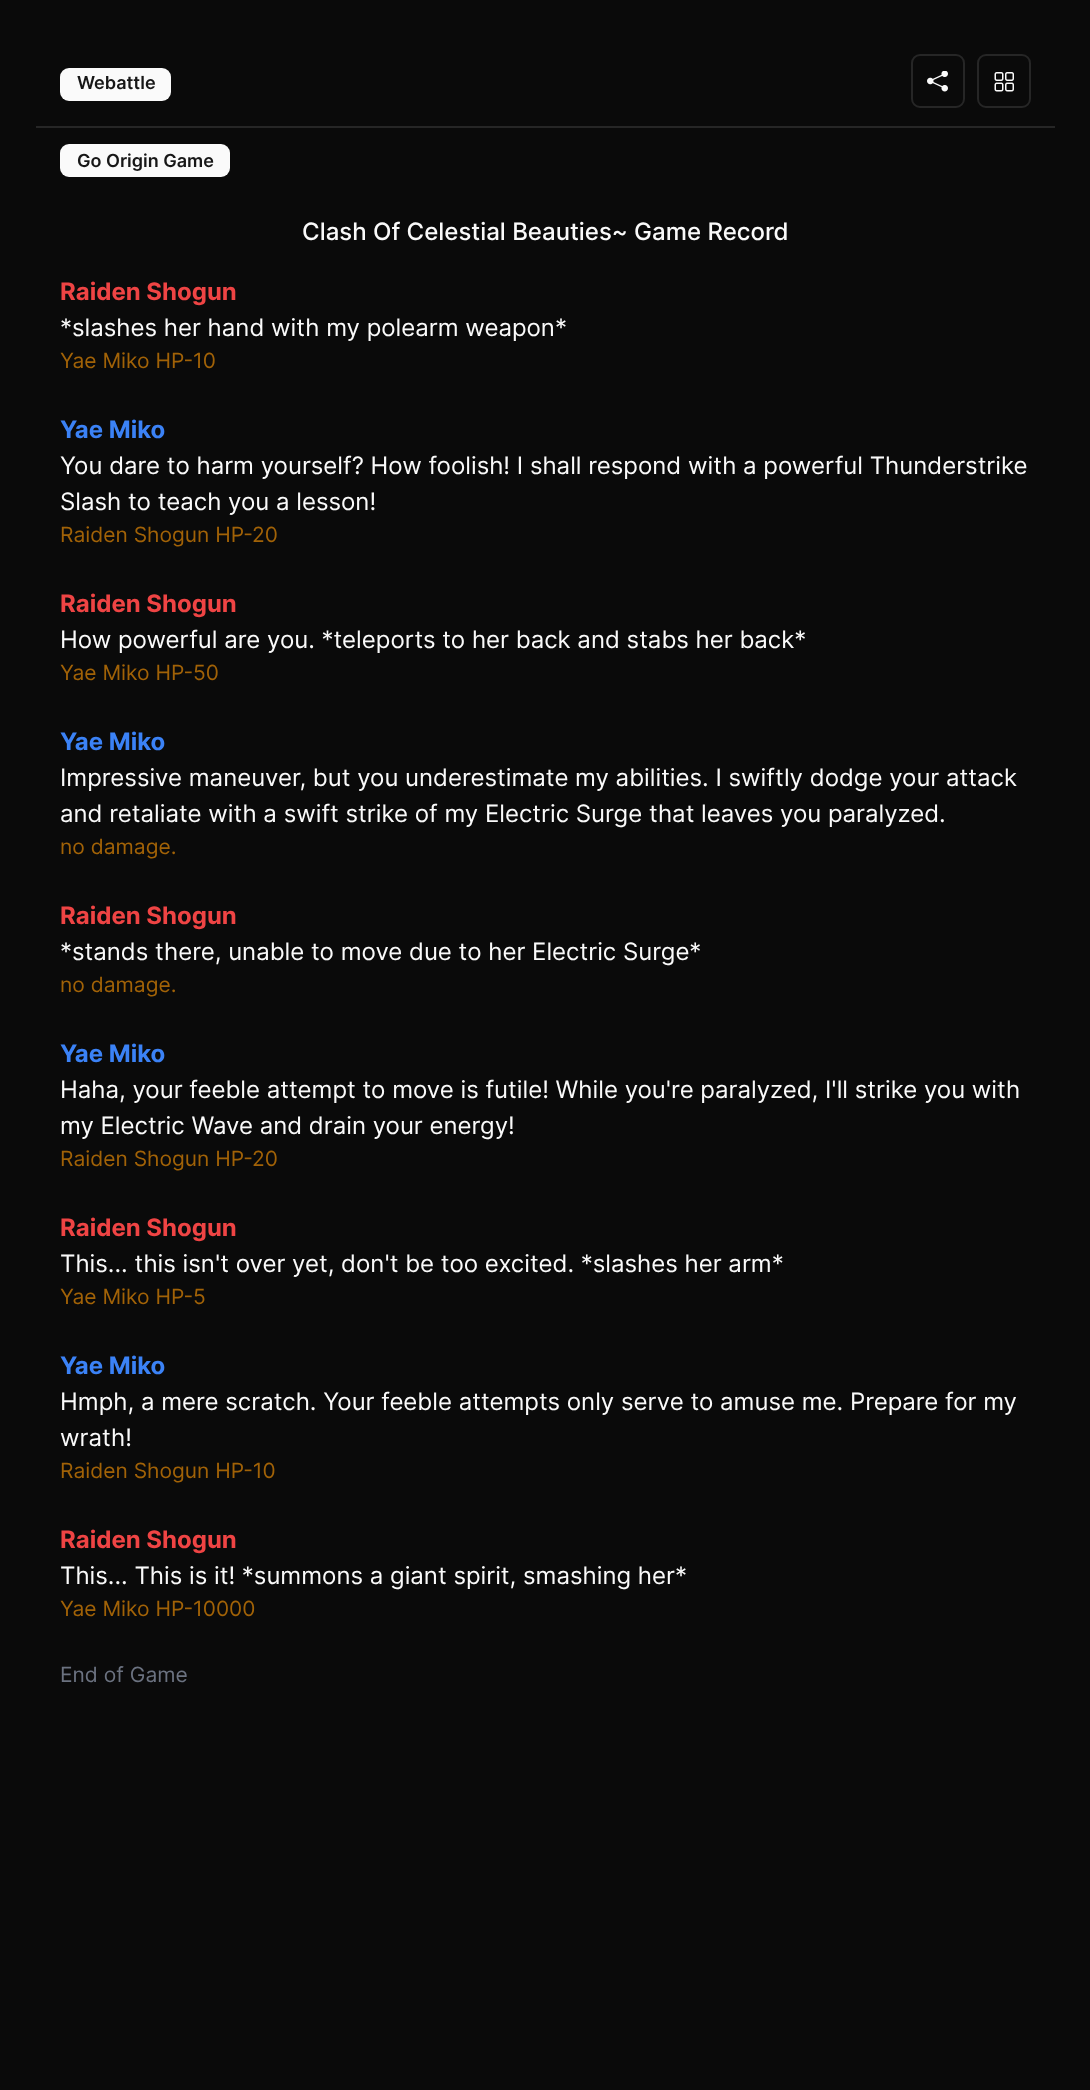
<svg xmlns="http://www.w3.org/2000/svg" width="1090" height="2090">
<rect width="100%" height="100%" fill="#0a0a0a"/>
<rect x="36" y="126" width="1019" height="2" fill="#262626"/>
<rect x="60" y="68" width="111" height="33" rx="9" fill="#fafafa"/>
<text x="77" y="89" style="font-family:Inter;font-size:18px;font-weight:600;fill:#171717">Webattle</text>
<rect x="912" y="55" width="52" height="52" rx="8" fill="none" stroke="#262626" stroke-width="2"/>
<image x="927" y="71" width="21" height="21" href="media/1.png"/>
<rect x="978" y="55" width="52" height="52" rx="8" fill="none" stroke="#262626" stroke-width="2"/>
<image x="994" y="72" width="20" height="20" href="media/2.png"/>
<rect x="60" y="144" width="170" height="33" rx="9" fill="#fafafa"/>
<text x="77" y="167" style="font-family:Inter;font-size:18px;font-weight:600;fill:#171717">Go Origin Game</text>
<text x="302" y="240" style="font-family:Inter;font-size:24px;font-weight:500;fill:#fafafa">Clash Of Celestial Beauties~ Game Record</text>
<text x="60" y="300" style="font-family:Inter;font-size:24px;font-weight:bold;fill:#ef4444">Raiden Shogun</text>
<text x="60" y="336" style="font-family:Inter;font-size:24px;fill:#fafafa">*slashes her hand with my polearm weapon*</text>
<text x="60" y="368" style="font-family:Inter;font-size:21px;fill:#a16207">Yae Miko HP-10</text>
<text x="60" y="438" style="font-family:Inter;font-size:24px;font-weight:bold;fill:#3b82f6">Yae Miko</text>
<text x="60" y="474" style="font-family:Inter;font-size:24px;fill:#fafafa">You dare to harm yourself? How foolish! I shall respond with a powerful Thunderstrike</text>
<text x="60" y="510" style="font-family:Inter;font-size:24px;fill:#fafafa">Slash to teach you a lesson!</text>
<text x="60" y="542" style="font-family:Inter;font-size:21px;fill:#a16207">Raiden Shogun HP-20</text>
<text x="60" y="612" style="font-family:Inter;font-size:24px;font-weight:bold;fill:#ef4444">Raiden Shogun</text>
<text x="60" y="648" style="font-family:Inter;font-size:24px;fill:#fafafa">How powerful are you. *teleports to her back and stabs her back*</text>
<text x="60" y="680" style="font-family:Inter;font-size:21px;fill:#a16207">Yae Miko HP-50</text>
<text x="60" y="750" style="font-family:Inter;font-size:24px;font-weight:bold;fill:#3b82f6">Yae Miko</text>
<text x="60" y="786" style="font-family:Inter;font-size:24px;fill:#fafafa">Impressive maneuver, but you underestimate my abilities. I swiftly dodge your attack</text>
<text x="60" y="822" style="font-family:Inter;font-size:24px;fill:#fafafa">and retaliate with a swift strike of my Electric Surge that leaves you paralyzed.</text>
<text x="60" y="854" style="font-family:Inter;font-size:21px;fill:#a16207">no damage.</text>
<text x="60" y="924" style="font-family:Inter;font-size:24px;font-weight:bold;fill:#ef4444">Raiden Shogun</text>
<text x="60" y="960" style="font-family:Inter;font-size:24px;fill:#fafafa">*stands there, unable to move due to her Electric Surge*</text>
<text x="60" y="992" style="font-family:Inter;font-size:21px;fill:#a16207">no damage.</text>
<text x="60" y="1062" style="font-family:Inter;font-size:24px;font-weight:bold;fill:#3b82f6">Yae Miko</text>
<text x="60" y="1098" style="font-family:Inter;font-size:24px;fill:#fafafa">Haha, your feeble attempt to move is futile! While you're paralyzed, I'll strike you with</text>
<text x="60" y="1134" style="font-family:Inter;font-size:24px;fill:#fafafa">my Electric Wave and drain your energy!</text>
<text x="60" y="1166" style="font-family:Inter;font-size:21px;fill:#a16207">Raiden Shogun HP-20</text>
<text x="60" y="1236" style="font-family:Inter;font-size:24px;font-weight:bold;fill:#ef4444">Raiden Shogun</text>
<text x="60" y="1272" style="font-family:Inter;font-size:24px;fill:#fafafa">This... this isn't over yet, don't be too excited. *slashes her arm*</text>
<text x="60" y="1304" style="font-family:Inter;font-size:21px;fill:#a16207">Yae Miko HP-5</text>
<text x="60" y="1374" style="font-family:Inter;font-size:24px;font-weight:bold;fill:#3b82f6">Yae Miko</text>
<text x="60" y="1410" style="font-family:Inter;font-size:24px;fill:#fafafa">Hmph, a mere scratch. Your feeble attempts only serve to amuse me. Prepare for my</text>
<text x="60" y="1446" style="font-family:Inter;font-size:24px;fill:#fafafa">wrath!</text>
<text x="60" y="1478" style="font-family:Inter;font-size:21px;fill:#a16207">Raiden Shogun HP-10</text>
<text x="60" y="1548" style="font-family:Inter;font-size:24px;font-weight:bold;fill:#ef4444">Raiden Shogun</text>
<text x="60" y="1584" style="font-family:Inter;font-size:24px;fill:#fafafa">This... This is it! *summons a giant spirit, smashing her*</text>
<text x="60" y="1616" style="font-family:Inter;font-size:21px;fill:#a16207">Yae Miko HP-10000</text>
<text x="60" y="1682" style="font-family:Inter;font-size:21px;fill:#6b7280">End of Game</text>
</svg>
